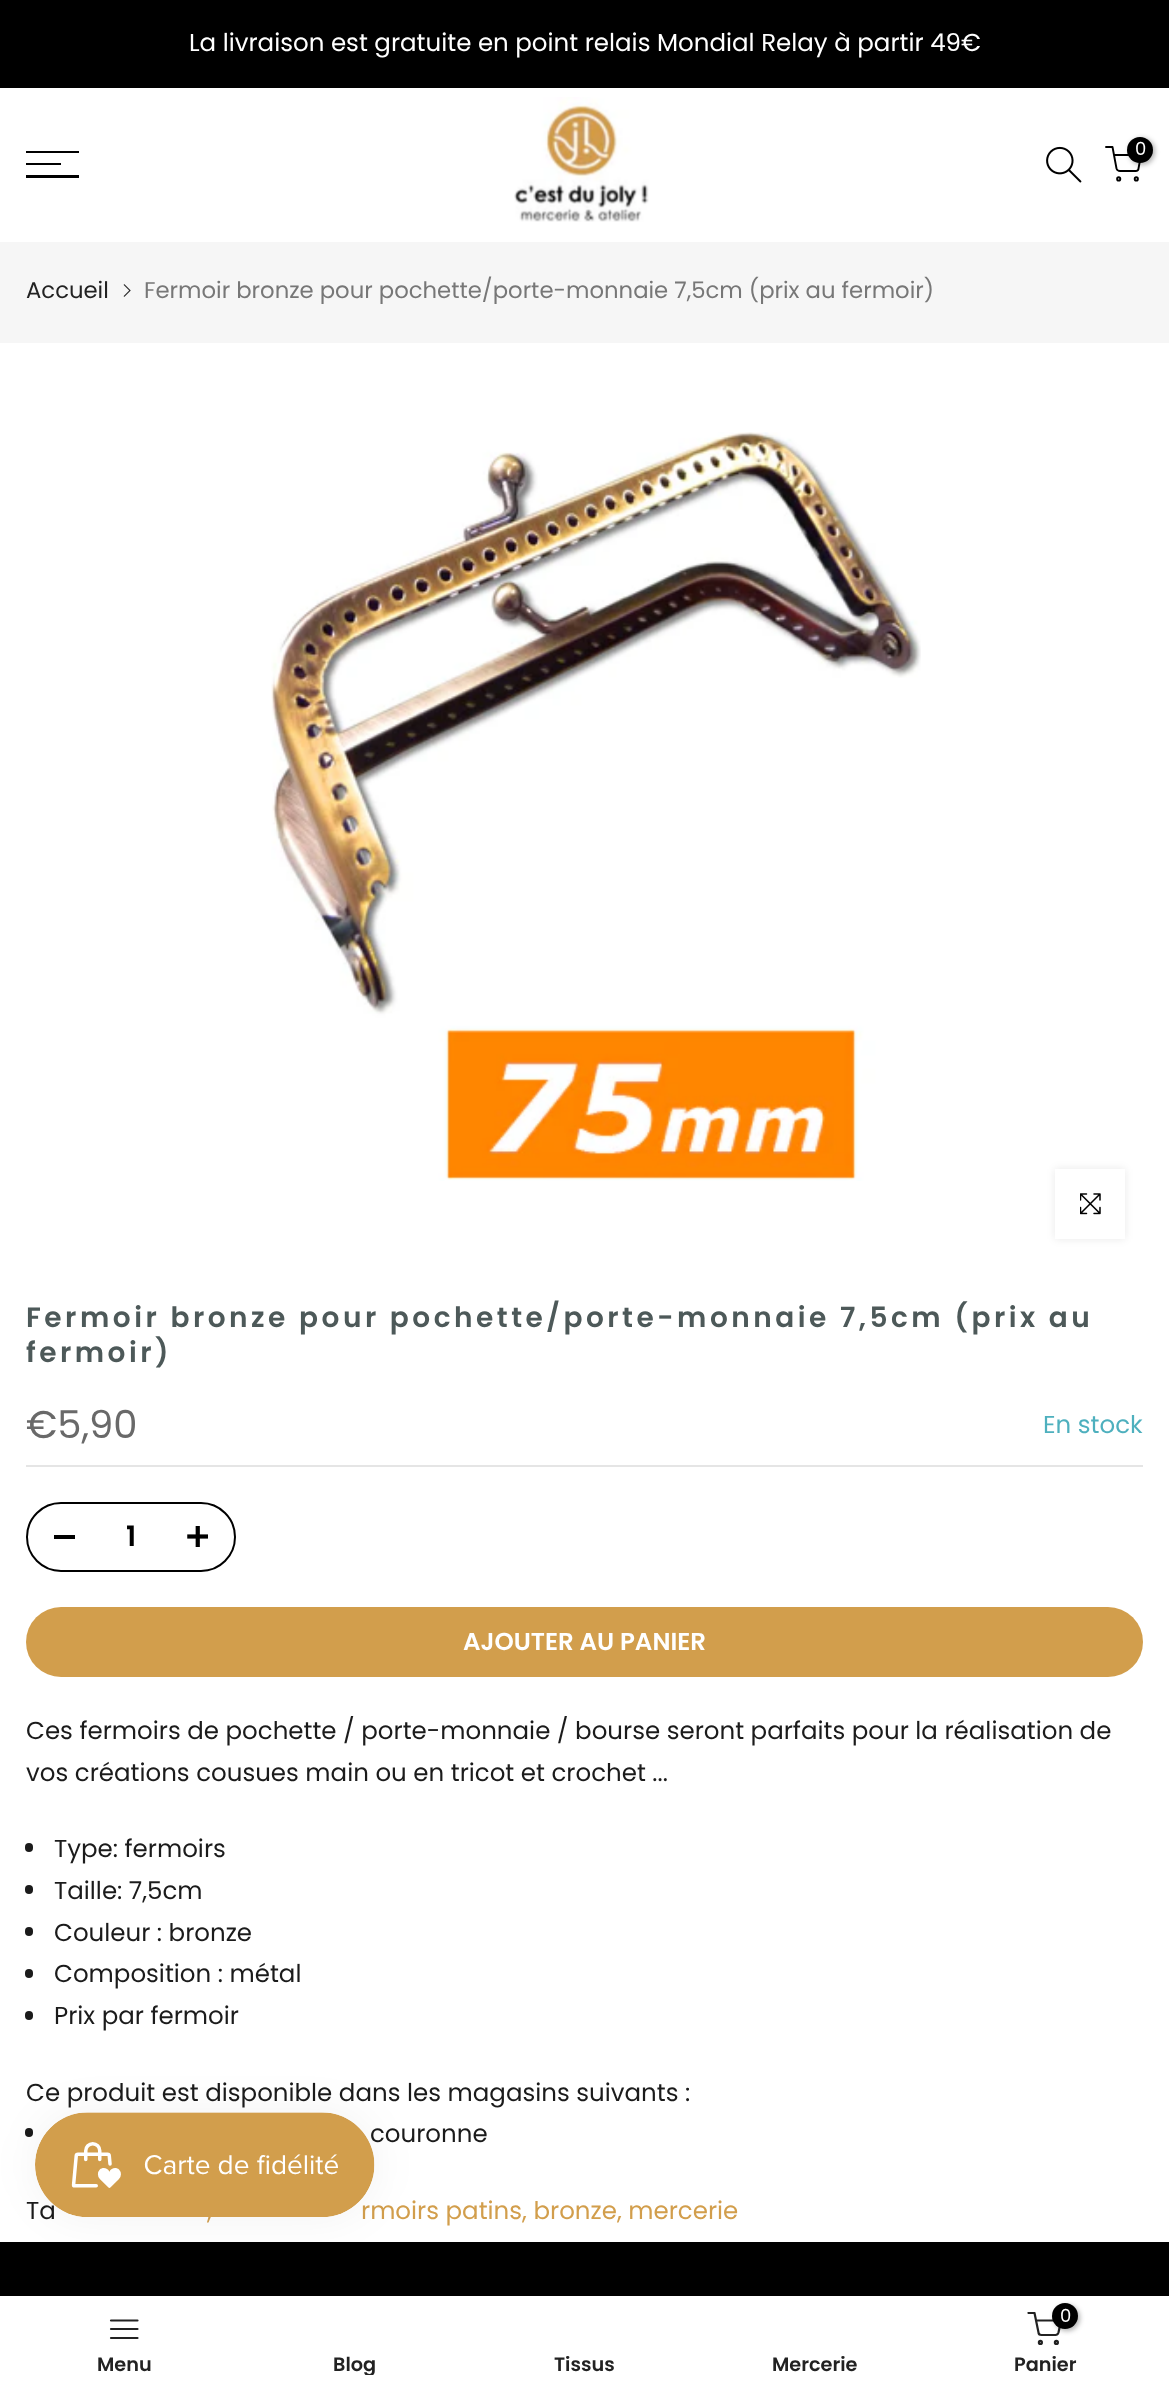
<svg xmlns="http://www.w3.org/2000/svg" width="1169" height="2392">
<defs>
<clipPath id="clip1"><rect x="257" y="2356" width="195" height="19"/></clipPath>
<clipPath id="clip2"><rect x="1027" y="2312" width="35" height="35"/></clipPath>
</defs>
<rect width="100%" height="100%" fill="#fff"/>
<rect width="1169" height="88" fill="#000"/>
<text x="189" y="51" style="font-family:Poppins;font-size:24.5px;fill:#fff">La livraison est gratuite en point relais Mondial Relay à partir 49€</text>
<image x="514" y="97" width="135" height="125" href="media/1.png"/>
<image x="1046" y="146" width="36" height="37" href="media/2.png"/>
<path d="M1106 147h6.5l4 21.5c.5 1.5 1.5 2.5 3.5 2.5h15.5c1.5 0 3-1 3-2.5l2.5-13.5h-27" fill="none" stroke="#000" stroke-width="1.9" stroke-linecap="round" stroke-linejoin="round"/>
<rect x="1129" y="138" width="26" height="27" rx="13" fill="#0000004d" filter="blur(2.5px)"/>
<circle cx="1140" cy="150" r="13" fill="#000"/>
<text x="1135" y="155" style="font-family:Poppins;font-size:18px;fill:#fff">0</text>
<circle cx="1118.7" cy="178.9" r="1.6" fill="none" stroke="#000" stroke-width="1.9"/>
<circle cx="1136.3" cy="178.9" r="1.6" fill="none" stroke="#000" stroke-width="1.9"/>
<rect x="26" y="151" width="53" height="2" fill="#000"/>
<rect x="26" y="163" width="35" height="2" fill="#000"/>
<rect x="26" y="175" width="53" height="3" fill="#000"/>
<rect y="242" width="1169" height="101" fill="#f6f6f6"/>
<text x="26" y="298" style="font-family:Poppins;font-size:22.75px;fill:#222">Accueil</text>
<image x="123" y="284" width="8" height="13" href="media/3.png"/>
<text x="144" y="298" style="font-family:Poppins;font-size:22.75px;fill:#777">Fermoir bronze pour pochette/porte-monnaie 7,5cm (prix au fermoir)</text>
<image x="271" y="432" width="650" height="749" href="media/4.png"/>
<rect x="1055" y="1169" width="70" height="70" fill="#00000017" filter="blur(4.5px)"/>
<rect x="1055" y="1169" width="70" height="70" fill="#fff"/>
<image x="1080" y="1193" width="21" height="22" href="media/5.png"/>
<text x="26" y="1327" style="font-family:Poppins;font-size:28px;font-weight:600;letter-spacing:3.5px;fill:#4d5959">Fermoir bronze pour pochette/porte-monnaie 7,5cm (prix au</text>
<text x="26" y="1362" style="font-family:Poppins;font-size:28px;font-weight:600;letter-spacing:3.5px;fill:#4d5959">fermoir)</text>
<rect x="26" y="1465" width="1117" height="2" fill="#e5e5e5"/>
<text x="26" y="1438" style="font-family:Poppins;font-size:38.5px;fill:#696969">€5,90</text>
<text x="1043" y="1433" style="font-family:Poppins;font-size:24.5px;fill:#4eb0be">En stock</text>
<rect x="27" y="1503" width="208" height="68" rx="34" fill="none" stroke="#000" stroke-width="2"/>
<rect x="54" y="1535" width="21" height="4" fill="#000"/>
<text x="126" y="1546" style="font-family:Poppins;font-size:28px;font-weight:600;fill:#000">1</text>
<image x="187" y="1526" width="21" height="21" href="media/6.png"/>
<rect x="26" y="1607" width="1117" height="70" rx="35" fill="#d29e4c"/>
<text x="463" y="1650" style="font-family:Poppins;font-size:24.5px;font-weight:600;fill:#fff">AJOUTER AU PANIER</text>
<text x="26" y="1739" style="font-family:Poppins;font-size:24.5px;fill:#1b1b1b">Ces fermoirs de pochette / porte-monnaie / bourse seront parfaits pour la réalisation de</text>
<text x="26" y="1781" style="font-family:Poppins;font-size:24.5px;fill:#1b1b1b">vos créations cousues main ou en tricot et crochet ...</text>
<rect x="25" y="1843" width="8" height="9" rx="4" fill="#1b1b1b"/>
<text x="54" y="1857" style="font-family:Poppins;font-size:24.5px;fill:#1b1b1b">Type: fermoirs</text>
<rect x="25" y="1885" width="8" height="9" rx="4" fill="#1b1b1b"/>
<text x="54" y="1899" style="font-family:Poppins;font-size:24.5px;fill:#1b1b1b">Taille: 7,5cm</text>
<rect x="25" y="1927" width="8" height="9" rx="4" fill="#1b1b1b"/>
<text x="54" y="1941" style="font-family:Poppins;font-size:24.5px;fill:#1b1b1b">Couleur : bronze</text>
<rect x="25" y="1969" width="8" height="9" rx="4" fill="#1b1b1b"/>
<text x="54" y="1982" style="font-family:Poppins;font-size:24.5px;fill:#1b1b1b">Composition : métal</text>
<rect x="25" y="2011" width="8" height="9" rx="4" fill="#1b1b1b"/>
<text x="54" y="2024" style="font-family:Poppins;font-size:24.5px;fill:#1b1b1b">Prix par fermoir</text>
<text x="26" y="2101" style="font-family:Poppins;font-size:24.5px;fill:#1b1b1b">Ce produit est disponible dans les magasins suivants :</text>
<rect x="25" y="2128" width="8" height="9" rx="4" fill="#1b1b1b"/>
<text x="370" y="2142" style="font-family:Poppins;font-size:24.5px;fill:#1b1b1b">couronne</text>
<text x="26" y="2219" style="font-family:Poppins;font-size:24.5px;fill:#1b1b1b">Ta</text>
<text x="207" y="2219" style="font-family:Poppins;font-size:24.5px;fill:#d29e4c">,</text>
<text x="361" y="2219" style="font-family:Poppins;font-size:24.5px;fill:#d29e4c">rmoirs patins, bronze, mercerie</text>
<rect y="2242" width="1169" height="54" fill="#000"/>
<rect x="35" y="2112" width="340" height="105" rx="52.5" fill="#0000000d" filter="blur(22px)"/>
<image x="35" y="2112" width="340" height="105" href="media/7.png"/>
<path d="M111 2329h26.5m-26.5-8.5h26.5m-26.5 17.5h26.5" fill="none" stroke="#222" stroke-width="2.2" stroke-linecap="round" stroke-linejoin="round"/>
<text x="97" y="2371" style="font-family:Poppins;font-size:19.25px;font-weight:600;fill:#222">Menu</text>
<g clip-path="url(#clip1)">
<text x="333" y="2371" style="font-family:Poppins;font-size:19.25px;font-weight:600;fill:#222">Blog</text>
</g>
<text x="554" y="2371" style="font-family:Poppins;font-size:19.25px;font-weight:600;fill:#222">Tissus</text>
<text x="772" y="2371" style="font-family:Poppins;font-size:19.25px;font-weight:600;fill:#222">Mercerie</text>
<g clip-path="url(#clip2)">
<path d="M1028.5 2313h6l4 19.5c0 1.5 1.5 2.5 3 2.5h14c1.5 0 2.5-1 3-2.5l2.5-12h-25" fill="none" stroke="#222" stroke-width="2.2" stroke-linecap="round" stroke-linejoin="round"/>
</g>
<circle cx="1056.4" cy="2342.4" r="1.5" fill="none" stroke="#222" stroke-width="2.2"/>
<rect x="1054" y="2305" width="26" height="26" rx="13" fill="#0000004d" filter="blur(2.5px)"/>
<circle cx="1065" cy="2316" r="13" fill="#000"/>
<text x="1060" y="2322" style="font-family:Poppins;font-size:18px;fill:#fff">0</text>
<circle cx="1040.4" cy="2342.4" r="1.5" fill="none" stroke="#222" stroke-width="2.2"/>
<text x="1014" y="2371" style="font-family:Poppins;font-size:19.25px;font-weight:600;fill:#222">Panier</text>
</svg>
